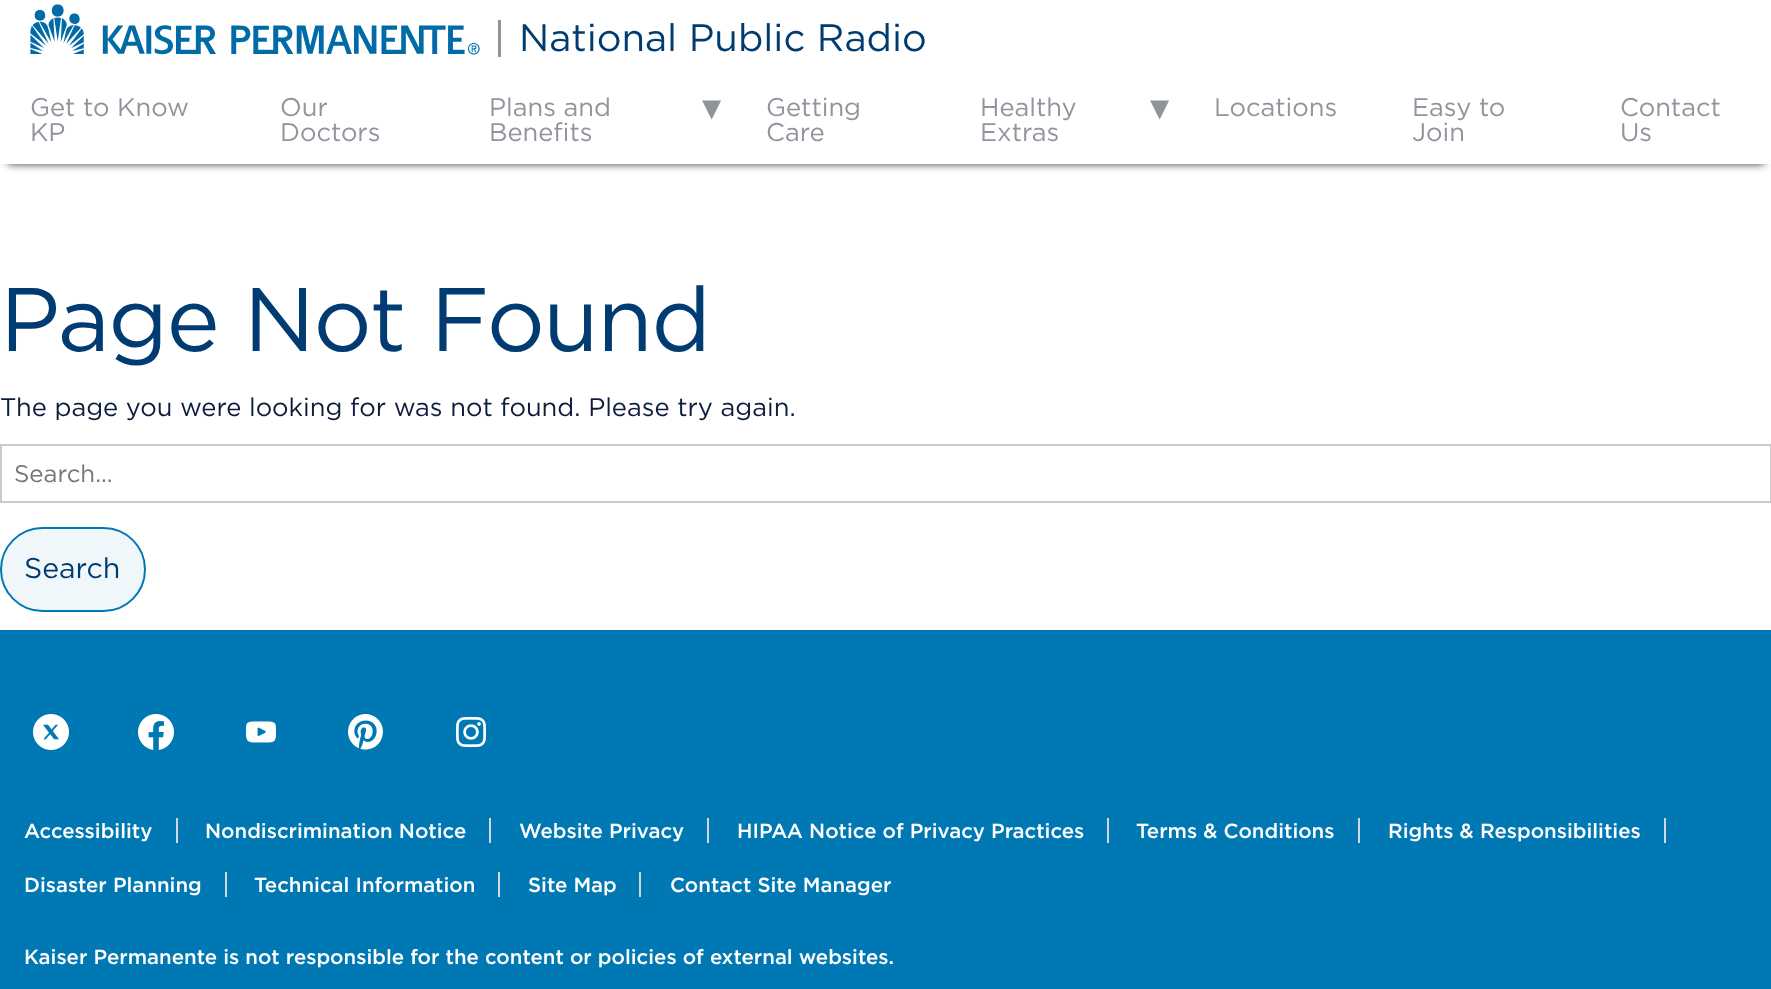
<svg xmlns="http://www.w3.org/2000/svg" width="1771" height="989">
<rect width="100%" height="100%" fill="#fff"/>
<rect x="8" y="-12" width="1756" height="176" fill="#333" filter="blur(4px)"/>
<rect width="1771" height="164" fill="#fff"/>
<image x="30" y="4" width="450" height="51" href="media/1.png"/>
<rect x="498" y="20" width="3" height="37" fill="#8f949d"/>
<text x="519" y="51" style="font-family:'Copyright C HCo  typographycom';font-size:38.25px;font-weight:300;fill:#003b71">National Public Radio</text>
<text x="30" y="116" style="font-family:'Copyright C HCo  typographycom';font-size:25.5px;font-weight:300;fill:#8f949d">Get to Know</text>
<text x="30" y="141" style="font-family:'Copyright C HCo  typographycom';font-size:25.5px;font-weight:300;fill:#8f949d">KP</text>
<text x="280" y="116" style="font-family:'Copyright C HCo  typographycom';font-size:25.5px;font-weight:300;fill:#8f949d">Our</text>
<text x="280" y="141" style="font-family:'Copyright C HCo  typographycom';font-size:25.5px;font-weight:300;fill:#8f949d">Doctors</text>
<text x="489" y="116" style="font-family:'Copyright C HCo  typographycom';font-size:25.5px;font-weight:300;fill:#8f949d">Plans and</text>
<text x="702" y="120" style="font-family:DejaVu Sans;font-size:38.25px;fill:#8f949d">▾</text>
<text x="489" y="141" style="font-family:'Copyright C HCo  typographycom';font-size:25.5px;font-weight:300;fill:#8f949d">Benefits</text>
<text x="766" y="116" style="font-family:'Copyright C HCo  typographycom';font-size:25.5px;font-weight:300;fill:#8f949d">Getting</text>
<text x="766" y="141" style="font-family:'Copyright C HCo  typographycom';font-size:25.5px;font-weight:300;fill:#8f949d">Care</text>
<text x="980" y="116" style="font-family:'Copyright C HCo  typographycom';font-size:25.5px;font-weight:300;fill:#8f949d">Healthy</text>
<text x="1150" y="120" style="font-family:DejaVu Sans;font-size:38.25px;fill:#8f949d">▾</text>
<text x="980" y="141" style="font-family:'Copyright C HCo  typographycom';font-size:25.5px;font-weight:300;fill:#8f949d">Extras</text>
<text x="1214" y="116" style="font-family:'Copyright C HCo  typographycom';font-size:25.5px;font-weight:300;fill:#8f949d">Locations</text>
<text x="1412" y="116" style="font-family:'Copyright C HCo  typographycom';font-size:25.5px;font-weight:300;fill:#8f949d">Easy to</text>
<text x="1412" y="141" style="font-family:'Copyright C HCo  typographycom';font-size:25.5px;font-weight:300;fill:#8f949d">Join</text>
<text x="1620" y="116" style="font-family:'Copyright C HCo  typographycom';font-size:25.5px;font-weight:300;fill:#8f949d">Contact</text>
<text x="1620" y="141" style="font-family:'Copyright C HCo  typographycom';font-size:25.5px;font-weight:300;fill:#8f949d">Us</text>
<text x="0" y="351" style="font-family:'Copyright C HCo  typographycom';font-size:90px;font-weight:300;letter-spacing:-1.5px;fill:#003b71">Page Not Found</text>
<text x="0" y="416" style="font-family:'Copyright C HCo  typographycom';font-size:25.5px;font-weight:300;fill:#0d1c3d">The page you were looking for was not found. Please try again.</text>
<rect x="1" y="445" width="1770" height="57" fill="none" stroke="#cacaca" stroke-width="2"/>
<text x="14" y="482" style="font-family:'Copyright C HCo  typographycom';font-size:24px;font-weight:300;fill:#757575">Search...</text>
<rect x="1" y="528" width="144" height="83" rx="41.5" fill="#f0f7fa" stroke="#0078b3" stroke-width="2"/>
<text x="24" y="578" style="font-family:'Copyright C HCo  typographycom';font-size:28.5px;font-weight:300;fill:#003b71">Search</text>
<rect y="630" width="1771" height="359" fill="#0078b3"/>
<image x="33" y="714" width="36" height="36" href="media/2.png"/>
<image x="138" y="714" width="36" height="36" href="media/3.png"/>
<image x="246" y="721" width="30" height="22" href="media/4.png"/>
<image x="348" y="714" width="35" height="36" href="media/5.png"/>
<image x="455" y="716" width="32" height="32" href="media/6.png"/>
<rect x="176" y="818" width="2" height="25" fill="#d3d6dc"/>
<text x="24" y="838" style="font-family:'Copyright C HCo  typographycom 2';font-size:20.4px;font-weight:300;fill:#fff">Accessibility</text>
<rect x="489" y="818" width="2" height="25" fill="#d3d6dc"/>
<text x="205" y="838" style="font-family:'Copyright C HCo  typographycom 2';font-size:20.4px;font-weight:300;fill:#fff">Nondiscrimination Notice</text>
<rect x="707" y="818" width="2" height="25" fill="#d3d6dc"/>
<text x="519" y="838" style="font-family:'Copyright C HCo  typographycom 2';font-size:20.4px;font-weight:300;fill:#fff">Website Privacy</text>
<rect x="1107" y="818" width="2" height="25" fill="#d3d6dc"/>
<text x="737" y="838" style="font-family:'Copyright C HCo  typographycom 2';font-size:20.4px;font-weight:300;fill:#fff">HIPAA Notice of Privacy Practices</text>
<rect x="1358" y="818" width="2" height="25" fill="#d3d6dc"/>
<text x="1136" y="838" style="font-family:'Copyright C HCo  typographycom 2';font-size:20.4px;font-weight:300;fill:#fff">Terms &amp; Conditions</text>
<rect x="1664" y="818" width="2" height="25" fill="#d3d6dc"/>
<text x="1388" y="838" style="font-family:'Copyright C HCo  typographycom 2';font-size:20.4px;font-weight:300;fill:#fff">Rights &amp; Responsibilities</text>
<rect x="225" y="872" width="2" height="25" fill="#d3d6dc"/>
<text x="24" y="892" style="font-family:'Copyright C HCo  typographycom 2';font-size:20.4px;font-weight:300;fill:#fff">Disaster Planning</text>
<rect x="498" y="872" width="2" height="25" fill="#d3d6dc"/>
<text x="254" y="892" style="font-family:'Copyright C HCo  typographycom 2';font-size:20.4px;font-weight:300;fill:#fff">Technical Information</text>
<rect x="639" y="872" width="2" height="25" fill="#d3d6dc"/>
<text x="528" y="892" style="font-family:'Copyright C HCo  typographycom 2';font-size:20.4px;font-weight:300;fill:#fff">Site Map</text>
<text x="670" y="892" style="font-family:'Copyright C HCo  typographycom 2';font-size:20.4px;font-weight:300;fill:#fff">Contact Site Manager</text>
<text x="24" y="964" style="font-family:'Copyright C HCo  typographycom 2';font-size:20.4px;font-weight:300;fill:#fff">Kaiser Permanente is not responsible for the content or policies of external websites.</text>
</svg>
